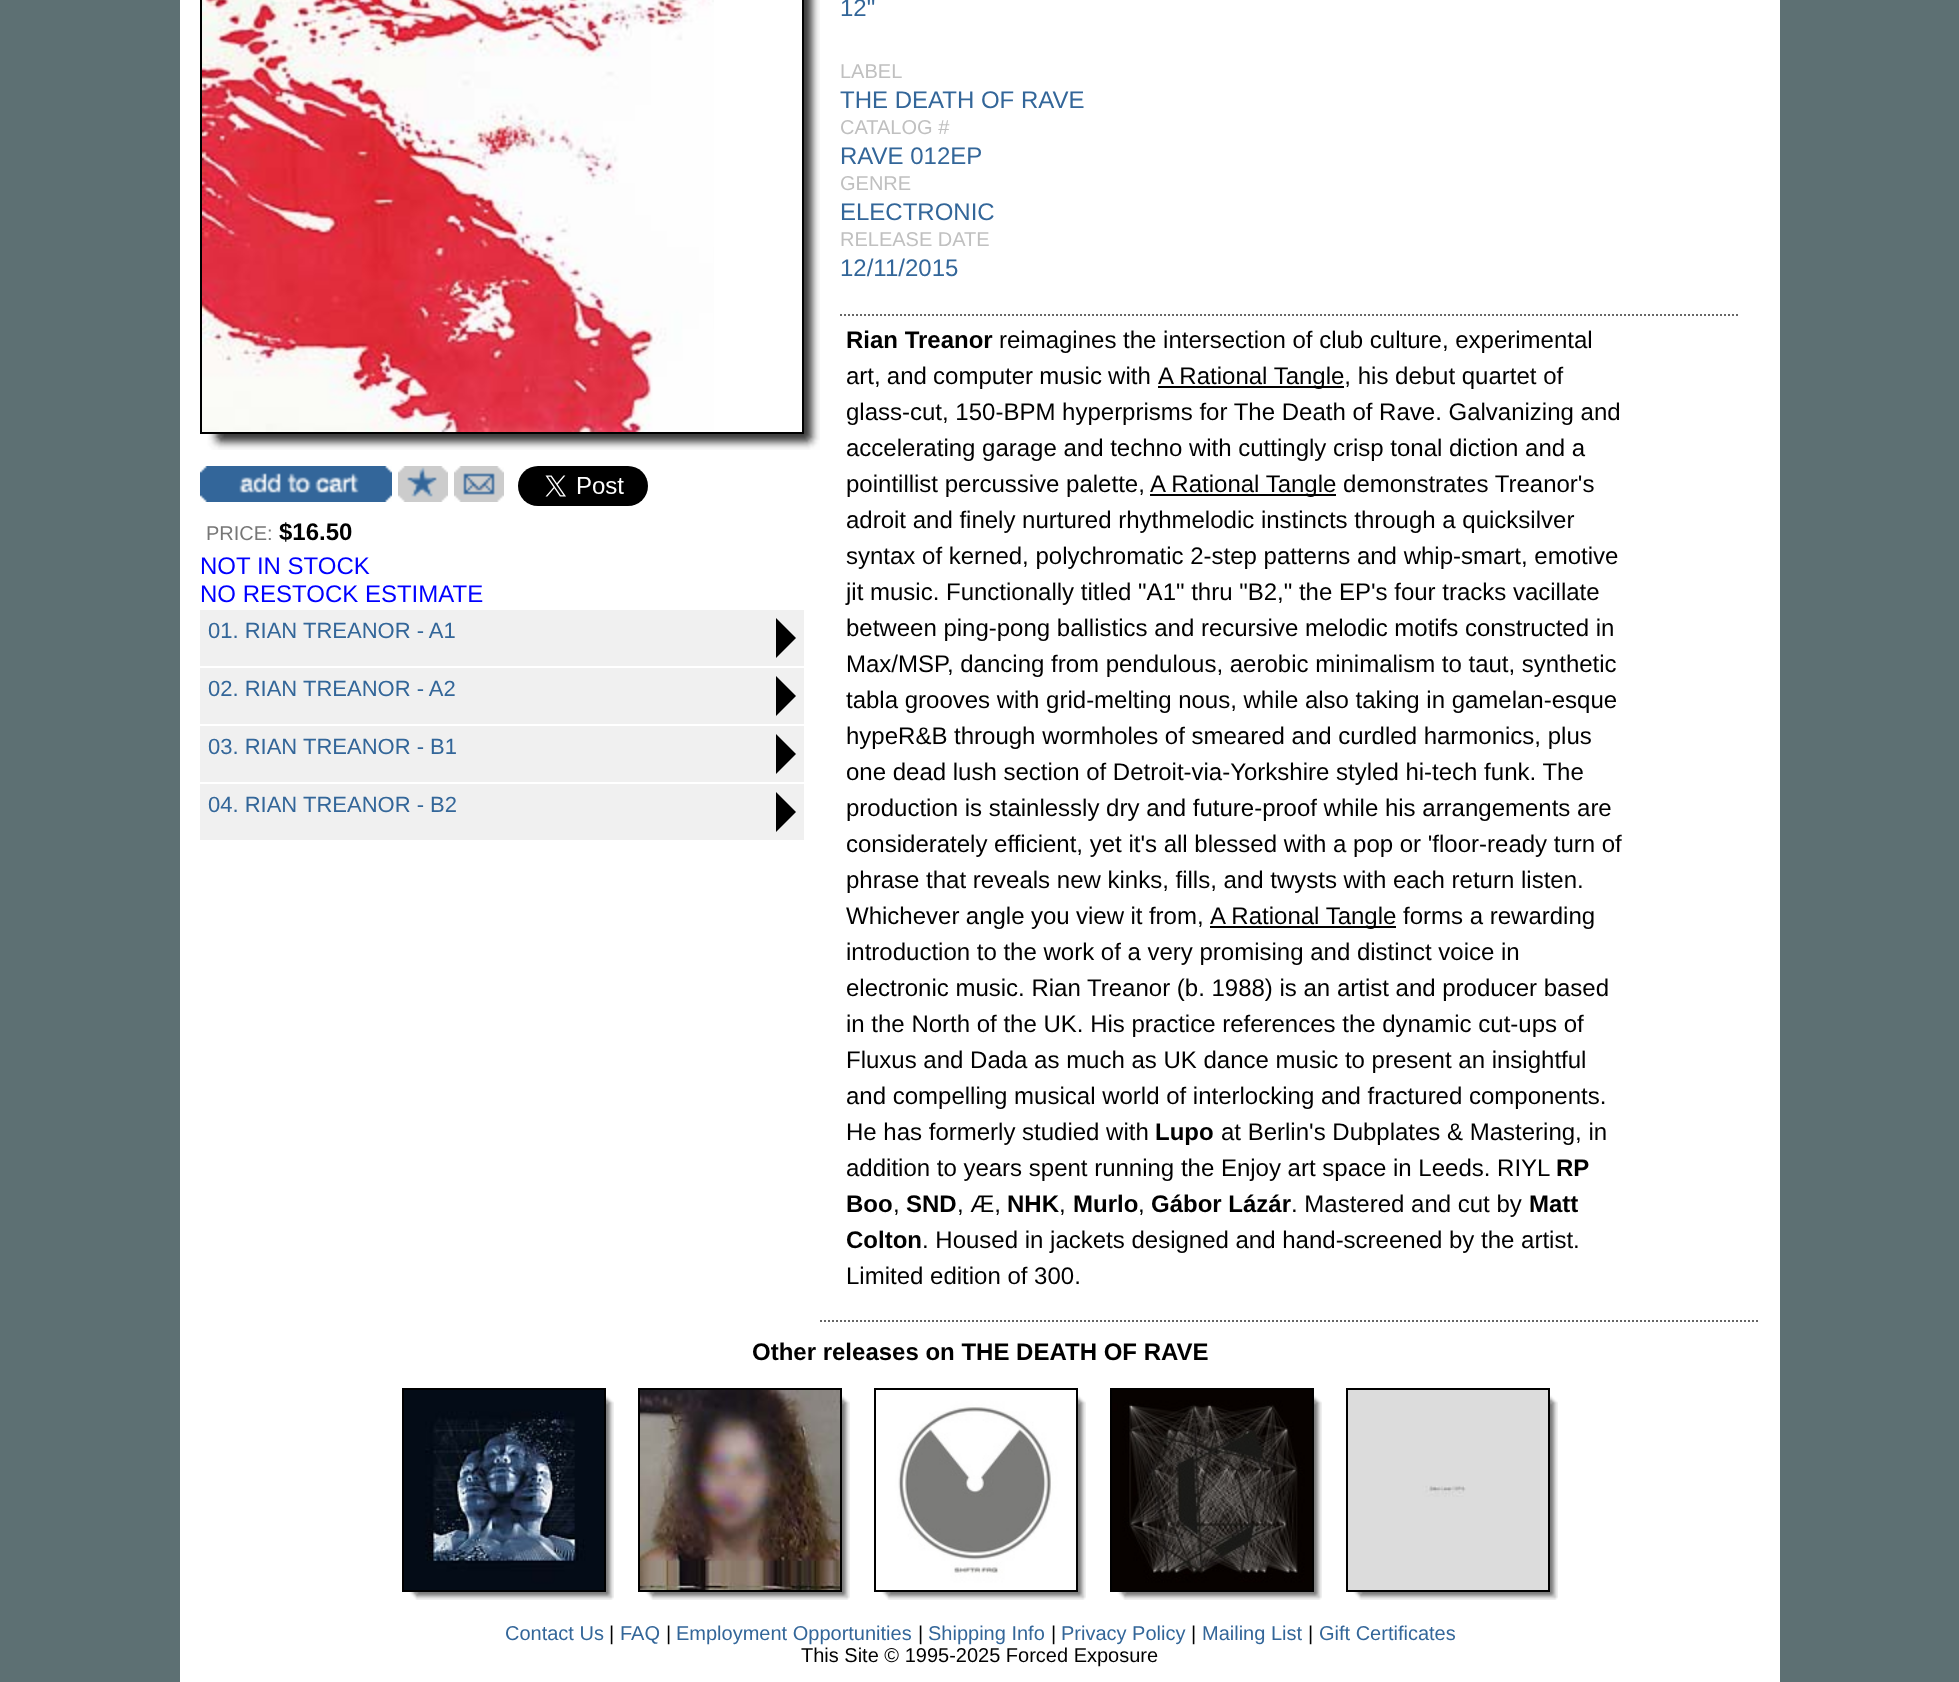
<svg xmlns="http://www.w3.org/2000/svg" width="1959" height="1682">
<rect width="100%" height="100%" fill="#5d7073"/>
<rect x="180" width="1600" height="1682" fill="#fff"/>
<image x="224" y="0" width="596" height="450" href="media/1.png"/>
<image x="200" y="434" width="24" height="16" href="media/2.png"/>
<rect x="714" width="88" height="432" fill="#fff"/>
<rect x="201" y="-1" width="602" height="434" fill="none" stroke="#000" stroke-width="2"/>
<image x="202" y="0" width="512" height="432" href="media/3.png"/>
<image x="200" y="466" width="192" height="36" href="media/4.png"/>
<image x="398" y="466" width="50" height="36" href="media/5.png"/>
<image x="454" y="466" width="50" height="36" href="media/6.png"/>
<image x="518" y="466" width="130" height="40" href="media/7.png"/>
<text x="206" y="540" style="font-family:Liberation Sans;font-size:20px;fill:#777">PRICE:</text>
<text x="279" y="540" style="font-family:Liberation Sans;font-size:24px;font-weight:bold;fill:#000">$16.50</text>
<text x="200" y="574" style="font-family:Liberation Sans;font-size:24px;fill:#00f">NOT IN STOCK</text>
<text x="200" y="602" style="font-family:Liberation Sans;font-size:24px;fill:#00f">NO RESTOCK ESTIMATE</text>
<rect x="200" y="610" width="604" height="230" fill="#f0f0f0"/>
<text x="208" y="638" style="font-family:Liberation Sans;font-size:22px;fill:#369">01. RIAN TREANOR - A1</text>
<path d="M776 658v-40l20 20z" fill="#000"/>
<rect x="200" y="666" width="604" height="2" fill="#fff"/>
<text x="208" y="696" style="font-family:Liberation Sans;font-size:22px;fill:#369">02. RIAN TREANOR - A2</text>
<path d="M776 716v-40l20 20z" fill="#000"/>
<rect x="200" y="724" width="604" height="2" fill="#fff"/>
<text x="208" y="754" style="font-family:Liberation Sans;font-size:22px;fill:#369">03. RIAN TREANOR - B1</text>
<path d="M776 774v-40l20 20z" fill="#000"/>
<rect x="200" y="782" width="604" height="2" fill="#fff"/>
<text x="208" y="812" style="font-family:Liberation Sans;font-size:22px;fill:#369">04. RIAN TREANOR - B2</text>
<path d="M776 832v-40l20 20z" fill="#000"/>
<path d="M820 1321h940" fill="none" stroke="#666" stroke-width="2" stroke-dasharray="2 2"/>
<text x="840" y="16" style="font-family:Liberation Sans;font-size:24px;fill:#369">12"</text>
<text x="840" y="78" style="font-family:Liberation Sans;font-size:20px;fill:#c0c0c0">LABEL</text>
<text x="840" y="108" style="font-family:Liberation Sans;font-size:24px;fill:#369">THE DEATH OF RAVE</text>
<text x="840" y="134" style="font-family:Liberation Sans;font-size:20px;fill:#c0c0c0">CATALOG #</text>
<text x="840" y="164" style="font-family:Liberation Sans;font-size:24px;fill:#369">RAVE 012EP</text>
<text x="840" y="190" style="font-family:Liberation Sans;font-size:20px;fill:#c0c0c0">GENRE</text>
<text x="840" y="220" style="font-family:Liberation Sans;font-size:24px;fill:#369">ELECTRONIC</text>
<text x="840" y="246" style="font-family:Liberation Sans;font-size:20px;fill:#c0c0c0">RELEASE DATE</text>
<text x="840" y="276" style="font-family:Liberation Sans;font-size:24px;fill:#369">12/11/2015</text>
<path d="M840 315h900" fill="none" stroke="#666" stroke-width="2" stroke-dasharray="2 2"/>
<text x="846" y="348" style="font-family:Liberation Sans;font-size:24px;font-weight:bold;fill:#000">Rian Treanor</text>
<text x="999" y="348" style="font-family:Liberation Sans;font-size:24px;fill:#000">reimagines the intersection of club culture, experimental</text>
<text x="846" y="384" word-spacing="-0.5" style="font-family:Liberation Sans;font-size:24px;fill:#000">art, and computer music with</text>
<rect x="1158" y="386" width="186" height="2" fill="#000"/>
<text x="1158" y="384" style="font-family:Liberation Sans;font-size:24px;fill:#000">A Rational Tangle, his debut quartet of</text>
<text x="846" y="420" style="font-family:Liberation Sans;font-size:24px;fill:#000">glass-cut, 150-BPM hyperprisms for The Death of Rave. Galvanizing and</text>
<text x="846" y="456" style="font-family:Liberation Sans;font-size:24px;fill:#000">accelerating garage and techno with cuttingly crisp tonal diction and a</text>
<text x="846" y="492" style="font-family:Liberation Sans;font-size:24px;fill:#000">pointillist percussive palette,</text>
<rect x="1150" y="494" width="186" height="2" fill="#000"/>
<text x="1150" y="492" style="font-family:Liberation Sans;font-size:24px;fill:#000">A Rational Tangle demonstrates Treanor's</text>
<text x="846" y="528" style="font-family:Liberation Sans;font-size:24px;fill:#000">adroit and finely nurtured rhythmelodic instincts through a quicksilver</text>
<text x="846" y="564" style="font-family:Liberation Sans;font-size:24px;fill:#000">syntax of kerned, polychromatic 2-step patterns and whip-smart, emotive</text>
<text x="846" y="600" style="font-family:Liberation Sans;font-size:24px;fill:#000">jit music. Functionally titled "A1" thru "B2," the EP's four tracks vacillate</text>
<text x="846" y="636" style="font-family:Liberation Sans;font-size:24px;fill:#000">between ping-pong ballistics and recursive melodic motifs constructed in</text>
<text x="846" y="672" style="font-family:Liberation Sans;font-size:24px;fill:#000">Max/MSP, dancing from pendulous, aerobic minimalism to taut, synthetic</text>
<text x="846" y="708" style="font-family:Liberation Sans;font-size:24px;fill:#000">tabla grooves with grid-melting nous, while also taking in gamelan-esque</text>
<text x="846" y="744" style="font-family:Liberation Sans;font-size:24px;fill:#000">hypeR&amp;B through wormholes of smeared and curdled harmonics, plus</text>
<text x="846" y="780" style="font-family:Liberation Sans;font-size:24px;fill:#000">one dead lush section of Detroit-via-Yorkshire styled hi-tech funk. The</text>
<text x="846" y="816" style="font-family:Liberation Sans;font-size:24px;fill:#000">production is stainlessly dry and future-proof while his arrangements are</text>
<text x="846" y="852" style="font-family:Liberation Sans;font-size:24px;fill:#000">considerately efficient, yet it's all blessed with a pop or 'floor-ready turn of</text>
<text x="846" y="888" style="font-family:Liberation Sans;font-size:24px;fill:#000">phrase that reveals new kinks, fills, and twysts with each return listen.</text>
<text x="846" y="924" word-spacing="-0.25" style="font-family:Liberation Sans;font-size:24px;fill:#000">Whichever angle you view it from,</text>
<rect x="1210" y="926" width="186" height="2" fill="#000"/>
<text x="1210" y="924" style="font-family:Liberation Sans;font-size:24px;fill:#000">A Rational Tangle forms a rewarding</text>
<text x="846" y="960" style="font-family:Liberation Sans;font-size:24px;fill:#000">introduction to the work of a very promising and distinct voice in</text>
<text x="846" y="996" style="font-family:Liberation Sans;font-size:24px;fill:#000">electronic music. Rian Treanor (b. 1988) is an artist and producer based</text>
<text x="846" y="1032" style="font-family:Liberation Sans;font-size:24px;fill:#000">in the North of the UK. His practice references the dynamic cut-ups of</text>
<text x="846" y="1068" style="font-family:Liberation Sans;font-size:24px;fill:#000">Fluxus and Dada as much as UK dance music to present an insightful</text>
<text x="846" y="1104" style="font-family:Liberation Sans;font-size:24px;fill:#000">and compelling musical world of interlocking and fractured components.</text>
<text x="846" y="1140" style="font-family:Liberation Sans;font-size:24px;fill:#000">He has formerly studied with</text>
<text x="1155" y="1140" style="font-family:Liberation Sans;font-size:24px;font-weight:bold;fill:#000">Lupo</text>
<text x="1221" y="1140" style="font-family:Liberation Sans;font-size:24px;fill:#000">at Berlin's Dubplates &amp; Mastering, in</text>
<text x="846" y="1176" style="font-family:Liberation Sans;font-size:24px;fill:#000">addition to years spent running the Enjoy art space in Leeds. RIYL</text>
<text x="1556" y="1176" style="font-family:Liberation Sans;font-size:24px;font-weight:bold;fill:#000">RP</text>
<text x="846" y="1212" style="font-family:Liberation Sans;font-size:24px;font-weight:bold;fill:#000">Boo</text>
<text x="893" y="1212" style="font-family:Liberation Sans;font-size:24px;fill:#000">,</text>
<text x="906" y="1212" style="font-family:Liberation Sans;font-size:24px;font-weight:bold;fill:#000">SND</text>
<text x="957" y="1212" style="font-family:Liberation Sans;font-size:24px;fill:#000">, Æ,</text>
<text x="1007" y="1212" style="font-family:Liberation Sans;font-size:24px;font-weight:bold;fill:#000">NHK</text>
<text x="1059" y="1212" style="font-family:Liberation Sans;font-size:24px;fill:#000">,</text>
<text x="1073" y="1212" style="font-family:Liberation Sans;font-size:24px;font-weight:bold;fill:#000">Murlo</text>
<text x="1138" y="1212" style="font-family:Liberation Sans;font-size:24px;fill:#000">,</text>
<text x="1151" y="1212" style="font-family:Liberation Sans;font-size:24px;font-weight:bold;fill:#000">Gábor Lázár</text>
<text x="1291" y="1212" style="font-family:Liberation Sans;font-size:24px;fill:#000">. Mastered and cut by</text>
<text x="1529" y="1212" style="font-family:Liberation Sans;font-size:24px;font-weight:bold;fill:#000">Matt</text>
<text x="846" y="1248" style="font-family:Liberation Sans;font-size:24px;font-weight:bold;fill:#000">Colton</text>
<text x="922" y="1248" style="font-family:Liberation Sans;font-size:24px;fill:#000">. Housed in jackets designed and hand-screened by the artist.</text>
<text x="846" y="1284" style="font-family:Liberation Sans;font-size:24px;fill:#000">Limited edition of 300.</text>
<text x="752" y="1360" style="font-family:Liberation Sans;font-size:24px;font-weight:bold;fill:#000">Other releases on THE DEATH OF RAVE</text>
<image x="419" y="1405" width="195" height="195" href="media/8.png"/>
<image x="402" y="1592" width="17" height="8" href="media/9.png"/>
<image x="606" y="1388" width="8" height="17" href="media/10.png"/>
<rect x="403" y="1389" width="202" height="202" fill="none" stroke="#000" stroke-width="2"/>
<image x="404" y="1390" width="200" height="200" href="media/11.png"/>
<image x="655" y="1405" width="195" height="195" href="media/8.png"/>
<image x="638" y="1592" width="17" height="8" href="media/9.png"/>
<image x="842" y="1388" width="8" height="17" href="media/10.png"/>
<rect x="639" y="1389" width="202" height="202" fill="none" stroke="#000" stroke-width="2"/>
<image x="640" y="1390" width="200" height="200" href="media/12.png"/>
<image x="891" y="1405" width="195" height="195" href="media/8.png"/>
<image x="874" y="1592" width="17" height="8" href="media/9.png"/>
<image x="1078" y="1388" width="8" height="17" href="media/10.png"/>
<rect x="875" y="1389" width="202" height="202" fill="none" stroke="#000" stroke-width="2"/>
<image x="876" y="1390" width="200" height="200" href="media/13.png"/>
<image x="1127" y="1405" width="195" height="195" href="media/8.png"/>
<image x="1110" y="1592" width="17" height="8" href="media/9.png"/>
<image x="1314" y="1388" width="8" height="17" href="media/10.png"/>
<rect x="1111" y="1389" width="202" height="202" fill="none" stroke="#000" stroke-width="2"/>
<image x="1112" y="1390" width="200" height="200" href="media/14.png"/>
<image x="1363" y="1405" width="195" height="195" href="media/8.png"/>
<image x="1346" y="1592" width="17" height="8" href="media/9.png"/>
<image x="1550" y="1388" width="8" height="17" href="media/10.png"/>
<rect x="1347" y="1389" width="202" height="202" fill="none" stroke="#000" stroke-width="2"/>
<image x="1348" y="1390" width="200" height="200" href="media/15.png"/>
<text x="505" y="1640" style="font-family:Liberation Sans;font-size:20px;fill:#369">Contact Us</text>
<text x="609" y="1640" style="font-family:Liberation Sans;font-size:20px;fill:#000">|</text>
<text x="620" y="1640" style="font-family:Liberation Sans;font-size:20px;fill:#369">FAQ</text>
<text x="666" y="1640" style="font-family:Liberation Sans;font-size:20px;fill:#000">|</text>
<text x="676" y="1640" style="font-family:Liberation Sans;font-size:20px;fill:#369">Employment Opportunities</text>
<text x="918" y="1640" style="font-family:Liberation Sans;font-size:20px;fill:#000">|</text>
<text x="928" y="1640" style="font-family:Liberation Sans;font-size:20px;fill:#369">Shipping Info</text>
<text x="1051" y="1640" style="font-family:Liberation Sans;font-size:20px;fill:#000">|</text>
<text x="1061" y="1640" style="font-family:Liberation Sans;font-size:20px;fill:#369">Privacy Policy</text>
<text x="1191" y="1640" style="font-family:Liberation Sans;font-size:20px;fill:#000">|</text>
<text x="1202" y="1640" style="font-family:Liberation Sans;font-size:20px;fill:#369">Mailing List</text>
<text x="1308" y="1640" style="font-family:Liberation Sans;font-size:20px;fill:#000">|</text>
<text x="1319" y="1640" style="font-family:Liberation Sans;font-size:20px;fill:#369">Gift Certificates</text>
<text x="801" y="1662" style="font-family:Liberation Sans;font-size:20px;fill:#000">This Site © 1995-2025 Forced Exposure</text>
</svg>
